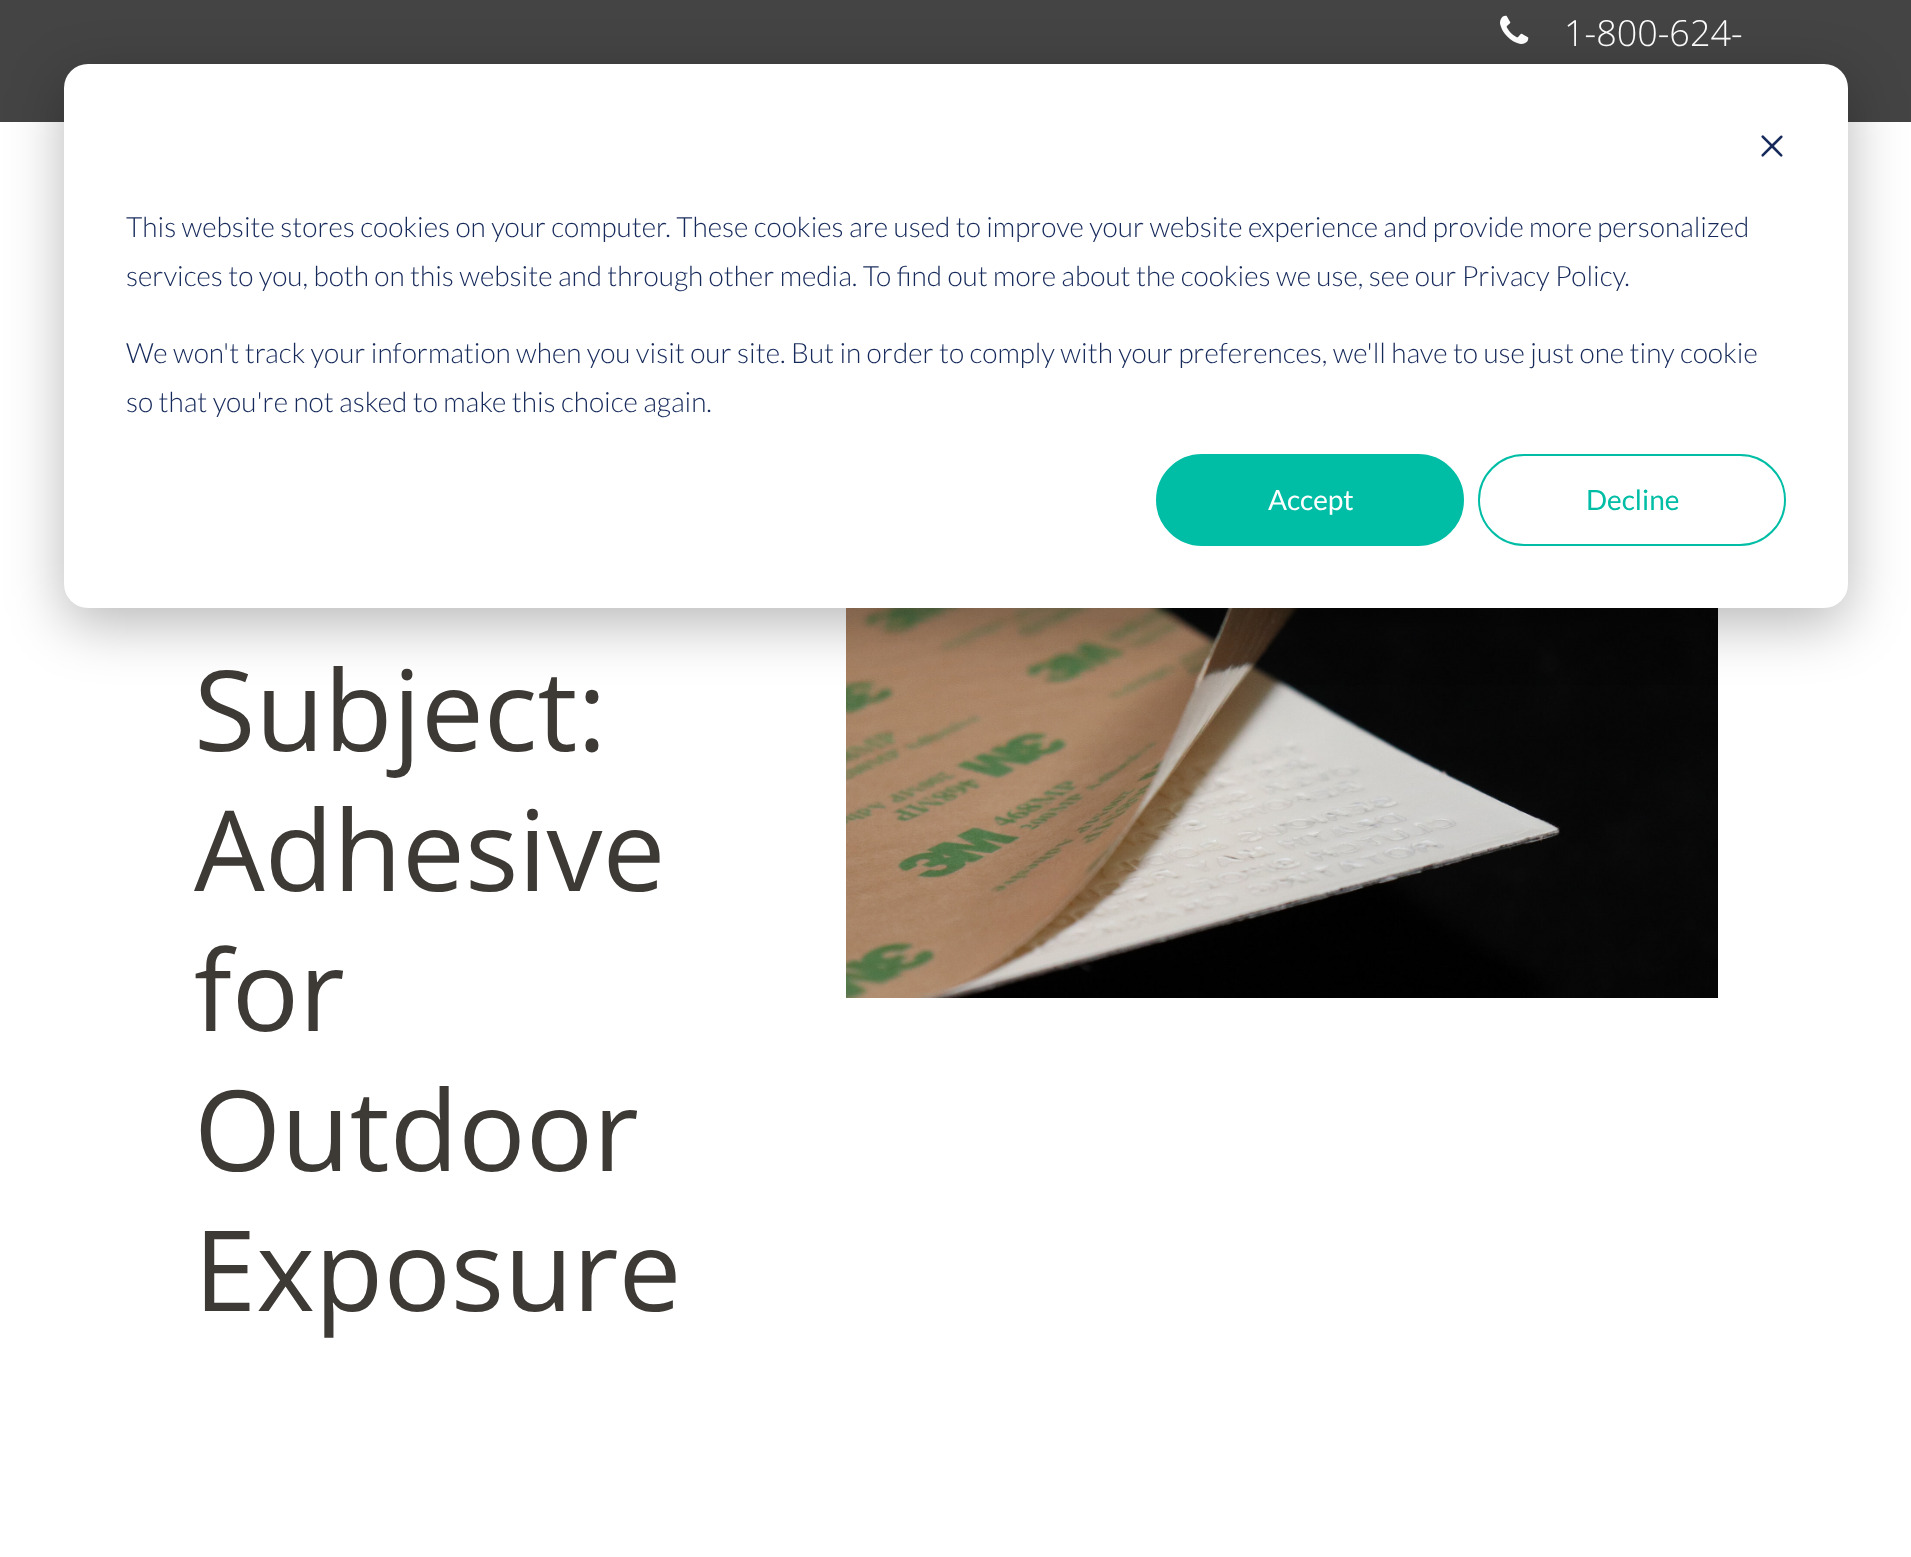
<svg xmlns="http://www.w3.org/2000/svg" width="1911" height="1557">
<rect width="100%" height="100%" fill="#fff"/>
<rect width="1911" height="122" fill="#444"/>
<image x="1500" y="15" width="29" height="29" href="media/1.png"/>
<text x="1564" y="46" style="font-family:Open Sans;font-size:36px;font-weight:300;fill:#fff">1-800-624-</text>
<image x="846" y="608" width="872" height="390" href="media/3.png"/>
<rect x="64" y="80" width="1784" height="544" rx="24" fill="#00000047" filter="blur(28px)"/>
<rect x="64" y="64" width="1784" height="544" rx="24" fill="#fff"/>
<image x="1761" y="135" width="22" height="22" href="media/2.png"/>
<text x="126" y="237" style="font-family:Lato;font-size:28px;font-weight:300;fill:#15295a">This website stores cookies on your computer. These cookies are used to improve your website experience and provide more personalized</text>
<text x="126" y="286" style="font-family:Lato;font-size:28px;font-weight:300;fill:#15295a">services to you, both on this website and through other media. To find out more about the cookies we use, see our Privacy Policy.</text>
<text x="126" y="363" style="font-family:Lato;font-size:28px;font-weight:300;fill:#15295a">We won't track your information when you visit our site. But in order to comply with your preferences, we'll have to use just one tiny cookie</text>
<text x="126" y="412" style="font-family:Lato;font-size:28px;font-weight:300;fill:#15295a">so that you're not asked to make this choice again.</text>
<rect x="1157" y="455" width="306" height="90" rx="45" fill="#00bda5" stroke="#00bda5" stroke-width="2"/>
<text x="1268" y="510" style="font-family:Lato;font-size:28px;fill:#fff">Accept</text>
<rect x="1479" y="455" width="306" height="90" rx="45" fill="none" stroke="#00bda5" stroke-width="2"/>
<text x="1586" y="510" style="font-family:Lato;font-size:28px;fill:#00bda5">Decline</text>
<text x="194" y="751" style="font-family:Open Sans;font-size:112px;fill:#3d3935">Subject:</text>
<text x="194" y="891" style="font-family:Open Sans;font-size:112px;fill:#3d3935">Adhesive</text>
<text x="194" y="1031" style="font-family:Open Sans;font-size:112px;fill:#3d3935">for</text>
<text x="194" y="1171" style="font-family:Open Sans;font-size:112px;fill:#3d3935">Outdoor</text>
<text x="194" y="1311" style="font-family:Open Sans;font-size:112px;fill:#3d3935">Exposure</text>
</svg>
